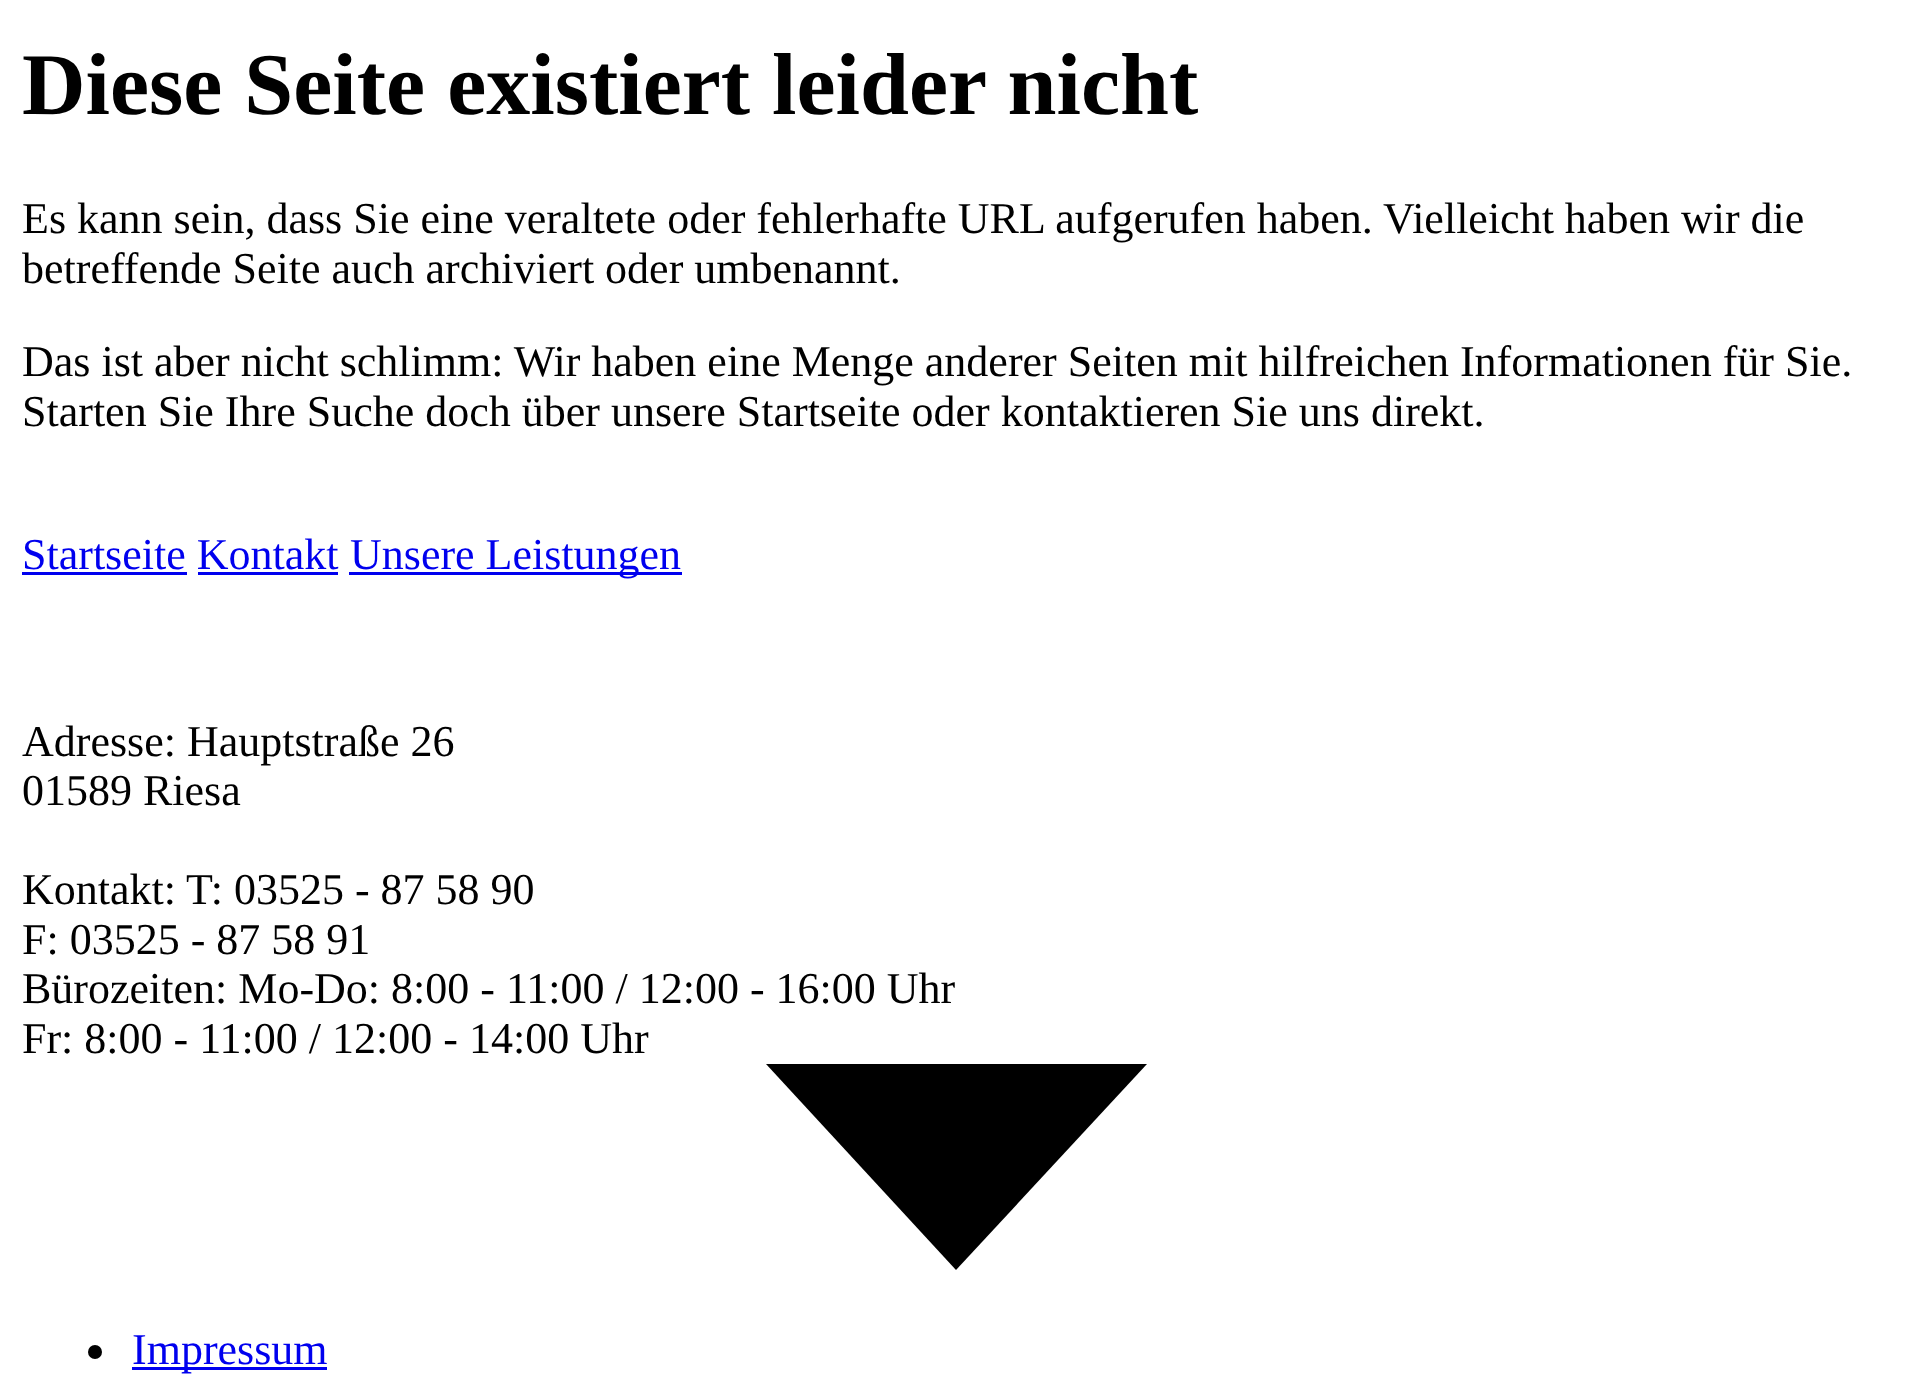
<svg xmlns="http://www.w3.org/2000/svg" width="1907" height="1386">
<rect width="100%" height="100%" fill="#fff"/>
<text x="22" y="114" style="font-family:Liberation Serif;font-size:88px;font-weight:bold;fill:#000">Diese Seite existiert leider nicht</text>
<text x="22" y="233" style="font-family:Liberation Serif;font-size:44px;fill:#000">Es kann sein, dass Sie eine veraltete oder fehlerhafte URL aufgerufen haben. Vielleicht haben wir die</text>
<text x="22" y="283" style="font-family:Liberation Serif;font-size:44px;fill:#000">betreffende Seite auch archiviert oder umbenannt.</text>
<text x="22" y="376" style="font-family:Liberation Serif;font-size:44px;fill:#000">Das ist aber nicht schlimm: Wir haben eine Menge anderer Seiten mit hilfreichen Informationen für Sie.</text>
<text x="22" y="426" style="font-family:Liberation Serif;font-size:44px;fill:#000">Starten Sie Ihre Suche doch über unsere Startseite oder kontaktieren Sie uns direkt.</text>
<text x="22" y="569" style="font-family:Liberation Serif;font-size:44px;fill:#00e">Startseite Kontakt</text>
<rect x="22" y="572" width="165" height="3" fill="#00e"/>
<rect x="349" y="572" width="333" height="3" fill="#00e"/>
<text x="350" y="569" style="font-family:Liberation Serif;font-size:44px;fill:#00e">Unsere Leistungen</text>
<rect x="198" y="572" width="140" height="3" fill="#00e"/>
<text x="22" y="756" style="font-family:Liberation Serif;font-size:44px;fill:#000">Adresse: Hauptstraße 26</text>
<text x="22" y="805" style="font-family:Liberation Serif;font-size:44px;fill:#000">01589 Riesa</text>
<text x="22" y="904" style="font-family:Liberation Serif;font-size:44px;fill:#000">Kontakt:</text>
<text x="186" y="904" style="font-family:Liberation Serif;font-size:44px;fill:#000">T: 03525 - 87 58 90</text>
<text x="22" y="954" style="font-family:Liberation Serif;font-size:44px;fill:#000">F: 03525 - 87 58 91</text>
<text x="22" y="1003" style="font-family:Liberation Serif;font-size:44px;fill:#000">Bürozeiten: Mo-Do: 8:00 - 11:00 / 12:00 - 16:00 Uhr</text>
<text x="22" y="1053" style="font-family:Liberation Serif;font-size:44px;fill:#000">Fr: 8:00 - 11:00 / 12:00 - 14:00 Uhr</text>
<path d="M1147 1064h-381l190 206z" fill="#000"/>
<circle cx="95" cy="1352" r="7" fill="#000"/>
<rect x="132" y="1367" width="195" height="3" fill="#00e"/>
<text x="132" y="1364" style="font-family:Liberation Serif;font-size:44px;fill:#00e">Impressum</text>
</svg>
